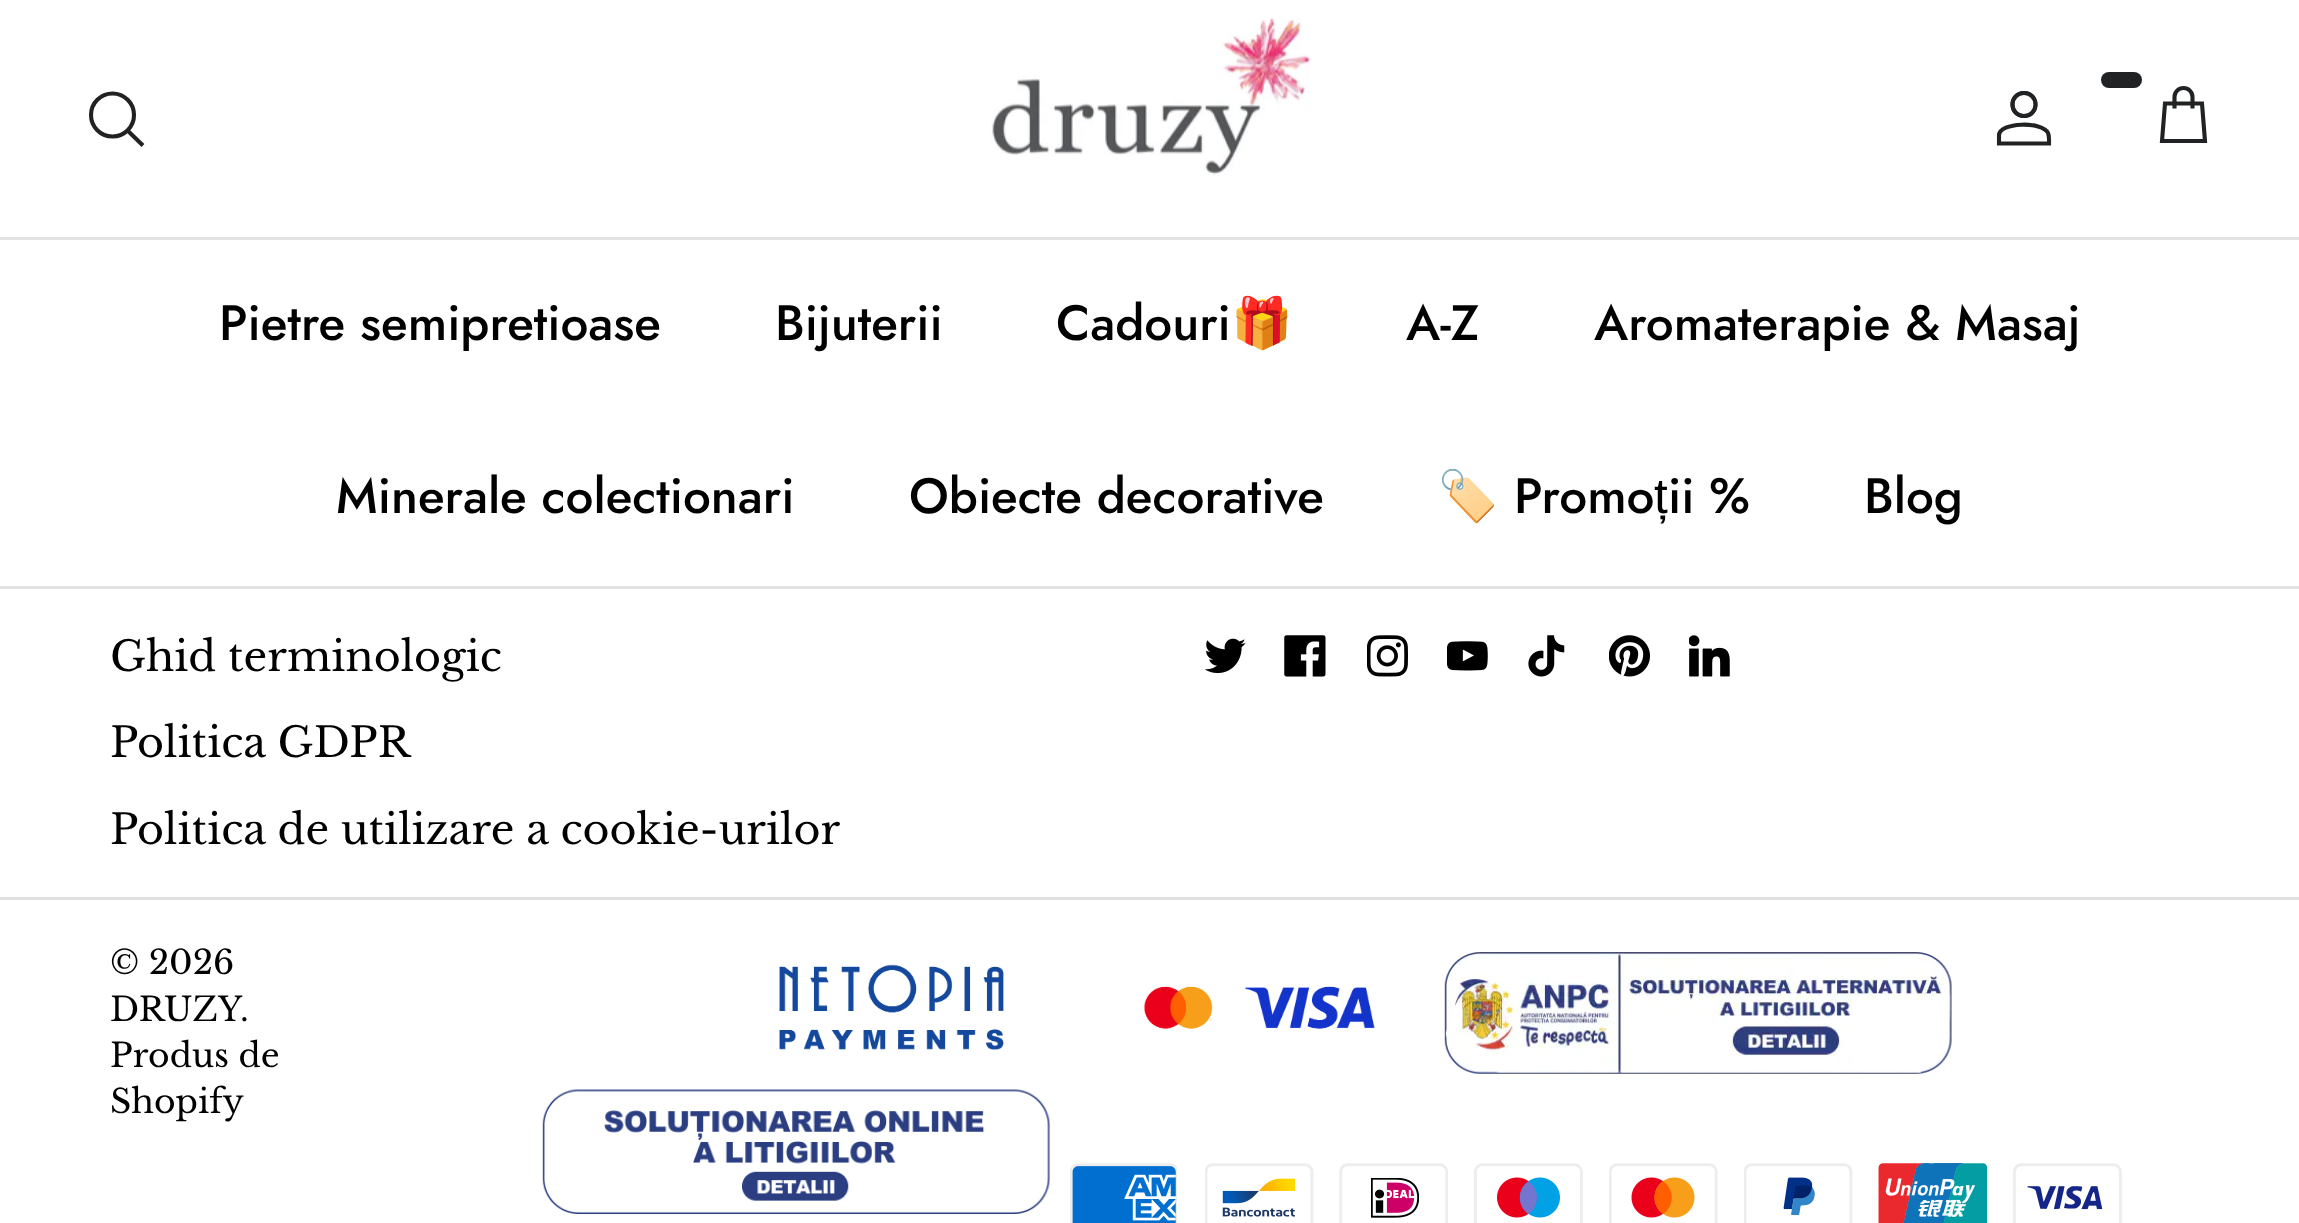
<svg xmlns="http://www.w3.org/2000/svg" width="2299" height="1223">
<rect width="100%" height="100%" fill="#fff"/>
<rect y="237" width="2299" height="3" fill="#e2e2e2"/>
<circle cx="112.5" cy="115" r="21.5" fill="none" stroke="#202223" stroke-width="4.1"/>
<path d="M129 132l12.5 12" fill="none" stroke="#202223" stroke-width="4.1" stroke-linecap="square"/>
<image x="991" y="16" width="320" height="160" href="media/1.png"/>
<rect x="2101" y="72" width="41" height="16" rx="8" fill="#202223"/>
<path d="M2024 91c18 0 18 27 0 27c-18 0-18-27 0-27zm0 3.5c-12.5 0-13 19.5 0 20c12.5 .5 13.5-20 0-20z" fill="#202223" fill-rule="evenodd"/>
<circle cx="2024" cy="104.5" r="11.5" fill="none" stroke="#202223" stroke-width="4.1"/>
<path d="M1999 135.5c0-13.5 43.5-14.5 49-2.5c1.5 3 1 7.5 1 10.5h-50z" fill="none" stroke="#202223" stroke-width="4.1"/>
<path d="M2192.5 108.5v-11.5c0-5-4-9-9-9c-5 0-9 4-9 9v11.5m-9.5-5h37l3 37.5h-43z" fill="none" stroke="#202223" stroke-width="4.1"/>
<rect y="586" width="2299" height="3" fill="#e2e2e2"/>
<text x="219" y="340" style="font-family:Jost;font-size:49.5px;font-weight:500;fill:#000">Pietre semipretioase</text>
<text x="775" y="340" style="font-family:Jost;font-size:49.5px;font-weight:500;fill:#000">Bijuterii</text>
<text x="1056" y="340" style="font-family:Jost;font-size:49.5px;font-weight:500;fill:#000">Cadouri</text>
<text x="1231" y="340" style="font-family:Noto Color Emoji;font-size:49.5px;fill:#000">🎁</text>
<text x="1406" y="340" style="font-family:Jost;font-size:49.5px;font-weight:500;fill:#000">A-Z</text>
<text x="1594" y="340" style="font-family:Jost;font-size:49.5px;font-weight:500;fill:#000">Aromaterapie &amp; Masaj</text>
<text x="336" y="513" style="font-family:Jost;font-size:49.5px;font-weight:500;fill:#000">Minerale colectionari</text>
<text x="909" y="513" style="font-family:Jost;font-size:49.5px;font-weight:500;fill:#000">Obiecte decorative</text>
<text x="1437" y="513" style="font-family:Noto Color Emoji;font-size:49.5px;fill:#000">🏷️</text>
<text x="1514" y="513" style="font-family:Jost;font-size:49.5px;font-weight:500;fill:#000">Promo</text>
<text x="1654" y="513" style="font-family:Liberation Sans;font-size:49.5px;fill:#000">ț</text>
<text x="1668" y="513" style="font-family:Jost;font-size:49.5px;font-weight:500;fill:#000">ii %</text>
<text x="1864" y="513" style="font-family:Jost;font-size:49.5px;font-weight:500;fill:#000">Blog</text>
<text x="110" y="671" style="font-family:Libre Baskerville;font-size:41.25px;fill:#000">Ghid terminologic</text>
<text x="110" y="757" style="font-family:Libre Baskerville;font-size:41.25px;fill:#000">Politica GDPR</text>
<text x="110" y="844" style="font-family:Libre Baskerville;font-size:41.25px;fill:#000">Politica de utilizare a cookie-urilor</text>
<image x="1205" y="638" width="41" height="36" href="media/2.png"/>
<image x="1284" y="635" width="42" height="42" href="media/3.png"/>
<image x="1367" y="635" width="41" height="42" href="media/4.png"/>
<image x="1447" y="641" width="41" height="30" href="media/5.png"/>
<image x="1528" y="635" width="37" height="42" href="media/6.png"/>
<image x="1609" y="635" width="41" height="42" href="media/7.png"/>
<image x="1689" y="635" width="41" height="42" href="media/8.png"/>
<rect y="897" width="2299" height="3" fill="#e0e0e0"/>
<text x="110" y="974" style="font-family:Libre Baskerville;font-size:33px;fill:#000">© 2026</text>
<text x="110" y="1021" style="font-family:Libre Baskerville;font-size:33px;fill:#000">DRUZY</text>
<text x="240" y="1021" style="font-family:Libre Baskerville;font-size:33px;fill:#000">.</text>
<text x="110" y="1067" style="font-family:Libre Baskerville;font-size:33px;fill:#000">Produs de</text>
<text x="110" y="1113" style="font-family:Libre Baskerville;font-size:33px;fill:#000">Shopify</text>
<image x="779" y="964" width="596" height="86" href="media/9.png"/>
<image x="1444" y="952" width="508" height="122" href="media/10.png"/>
<image x="542" y="1089" width="508" height="125" href="media/11.png"/>
<image x="1070" y="1163" width="107" height="60" href="media/12.png"/>
<image x="1205" y="1163" width="109" height="60" href="media/13.png"/>
<image x="1339" y="1163" width="109" height="60" href="media/14.png"/>
<image x="1474" y="1163" width="109" height="60" href="media/15.png"/>
<image x="1609" y="1163" width="109" height="60" href="media/16.png"/>
<image x="1744" y="1163" width="109" height="60" href="media/17.png"/>
<image x="1878" y="1163" width="110" height="60" href="media/18.png"/>
<image x="2013" y="1163" width="109" height="60" href="media/19.png"/>
</svg>
